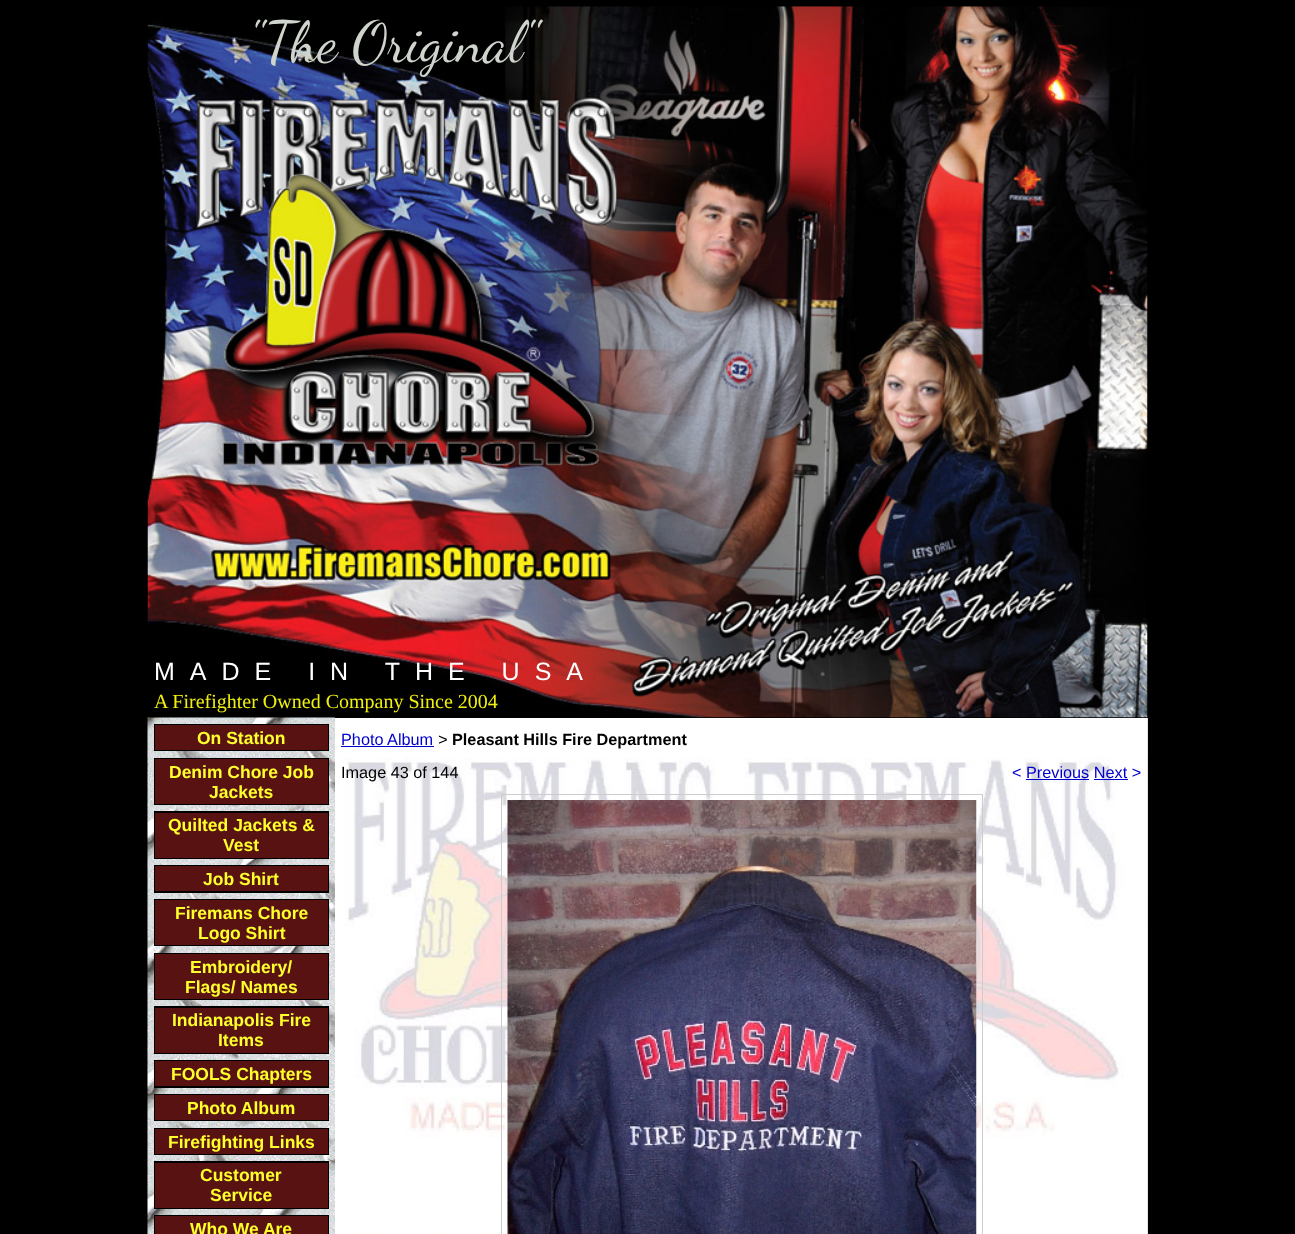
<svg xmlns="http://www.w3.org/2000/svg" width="1295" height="1234">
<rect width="100%" height="100%" fill="#000"/>
<image x="147" y="6" width="1001" height="712" href="media/1.png"/>
<text x="248" y="61" style="font-family:Dancing Script;font-size:57.5px;fill:#cfd4cd">"The Original"</text>
<text x="154" y="680" style="font-family:Liberation Sans;font-size:25px;letter-spacing:15px;fill:#fff">MADE IN THE USA</text>
<text x="154" y="708" style="font-family:Liberation Serif;font-size:20px;fill:#f0f010">A Firefighter Owned Company Since 2004</text>
<image x="147" y="717" width="188" height="517" href="media/2.png"/>
<rect x="154" y="724" width="175" height="27" fill="#000"/>
<rect x="155" y="725" width="173" height="25" fill="#591212"/>
<text x="197" y="744" style="font-family:Liberation Sans;font-size:17.5px;font-weight:bold;fill:#ffff2b">On Station</text>
<rect x="154" y="758" width="175" height="47" fill="#000"/>
<rect x="155" y="759" width="173" height="45" fill="#591212"/>
<text x="169" y="778" style="font-family:Liberation Sans;font-size:17.5px;font-weight:bold;fill:#ffff2b">Denim Chore Job</text>
<text x="209" y="798" style="font-family:Liberation Sans;font-size:17.5px;font-weight:bold;fill:#ffff2b">Jackets</text>
<rect x="154" y="811" width="175" height="48" fill="#000"/>
<rect x="155" y="813" width="173" height="45" fill="#591212"/>
<text x="168" y="831" style="font-family:Liberation Sans;font-size:17.5px;font-weight:bold;fill:#ffff2b">Quilted Jackets &amp;</text>
<text x="223" y="851" style="font-family:Liberation Sans;font-size:17.5px;font-weight:bold;fill:#ffff2b">Vest</text>
<rect x="154" y="865" width="175" height="28" fill="#000"/>
<rect x="155" y="866" width="173" height="25" fill="#591212"/>
<text x="203" y="885" style="font-family:Liberation Sans;font-size:17.5px;font-weight:bold;fill:#ffff2b">Job Shirt</text>
<rect x="154" y="899" width="175" height="47" fill="#000"/>
<rect x="155" y="900" width="173" height="45" fill="#591212"/>
<text x="175" y="919" style="font-family:Liberation Sans;font-size:17.5px;font-weight:bold;fill:#ffff2b">Firemans Chore</text>
<text x="198" y="939" style="font-family:Liberation Sans;font-size:17.5px;font-weight:bold;fill:#ffff2b">Logo Shirt</text>
<rect x="154" y="953" width="175" height="47" fill="#000"/>
<rect x="155" y="954" width="173" height="45" fill="#591212"/>
<text x="190" y="973" style="font-family:Liberation Sans;font-size:17.5px;font-weight:bold;fill:#ffff2b">Embroidery/</text>
<text x="185" y="993" style="font-family:Liberation Sans;font-size:17.5px;font-weight:bold;fill:#ffff2b">Flags/ Names</text>
<rect x="154" y="1006" width="175" height="48" fill="#000"/>
<rect x="155" y="1008" width="173" height="45" fill="#591212"/>
<text x="172" y="1026" style="font-family:Liberation Sans;font-size:17.5px;font-weight:bold;fill:#ffff2b">Indianapolis Fire</text>
<text x="218" y="1046" style="font-family:Liberation Sans;font-size:17.5px;font-weight:bold;fill:#ffff2b">Items</text>
<rect x="154" y="1060" width="175" height="28" fill="#000"/>
<rect x="155" y="1061" width="173" height="25" fill="#591212"/>
<text x="171" y="1080" style="font-family:Liberation Sans;font-size:17.5px;font-weight:bold;fill:#ffff2b">FOOLS Chapters</text>
<rect x="154" y="1094" width="175" height="27" fill="#000"/>
<rect x="155" y="1095" width="173" height="25" fill="#591212"/>
<text x="187" y="1114" style="font-family:Liberation Sans;font-size:17.5px;font-weight:bold;fill:#ffff2b">Photo Album</text>
<rect x="154" y="1128" width="175" height="27" fill="#000"/>
<rect x="155" y="1129" width="173" height="25" fill="#591212"/>
<text x="168" y="1148" style="font-family:Liberation Sans;font-size:17.5px;font-weight:bold;fill:#ffff2b">Firefighting Links</text>
<rect x="154" y="1161" width="175" height="48" fill="#000"/>
<rect x="155" y="1163" width="173" height="45" fill="#591212"/>
<text x="200" y="1181" style="font-family:Liberation Sans;font-size:17.5px;font-weight:bold;fill:#ffff2b">Customer</text>
<text x="210" y="1201" style="font-family:Liberation Sans;font-size:17.5px;font-weight:bold;fill:#ffff2b">Service</text>
<rect x="154" y="1215" width="175" height="19" fill="#000"/>
<rect x="155" y="1216" width="173" height="18" fill="#591212"/>
<text x="190" y="1235" style="font-family:Liberation Sans;font-size:17.5px;font-weight:bold;fill:#ffff2b">Who We Are</text>
<rect x="1147" y="718" width="1" height="516" fill="#ccc"/>
<image x="335" y="718" width="813" height="516" href="media/3.png"/>
<text x="341" y="745" style="font-family:Liberation Sans;font-size:16.25px;fill:#00c">Photo Album</text>
<rect x="341" y="746" width="93" height="1" fill="#00c"/>
<text x="438" y="745" style="font-family:Liberation Mono;font-size:16.25px;fill:#000">&gt;</text>
<text x="452" y="745" style="font-family:Liberation Sans;font-size:16.25px;font-weight:bold;fill:#000">Pleasant Hills Fire Department</text>
<text x="341" y="778" style="font-family:Liberation Sans;font-size:16.25px;fill:#000">Image 43 of 144</text>
<text x="1012" y="778" style="font-family:Liberation Sans;font-size:16.25px;fill:#00c">&lt; Previous Next &gt;</text>
<rect x="1026" y="779" width="63" height="1" fill="#00c"/>
<rect x="1094" y="779" width="34" height="1" fill="#00c"/>
<rect x="501.5" y="794.5" width="481" height="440" fill="none" stroke="#ccc"/>
<image x="507" y="800" width="470" height="434" href="media/4.png"/>
</svg>
